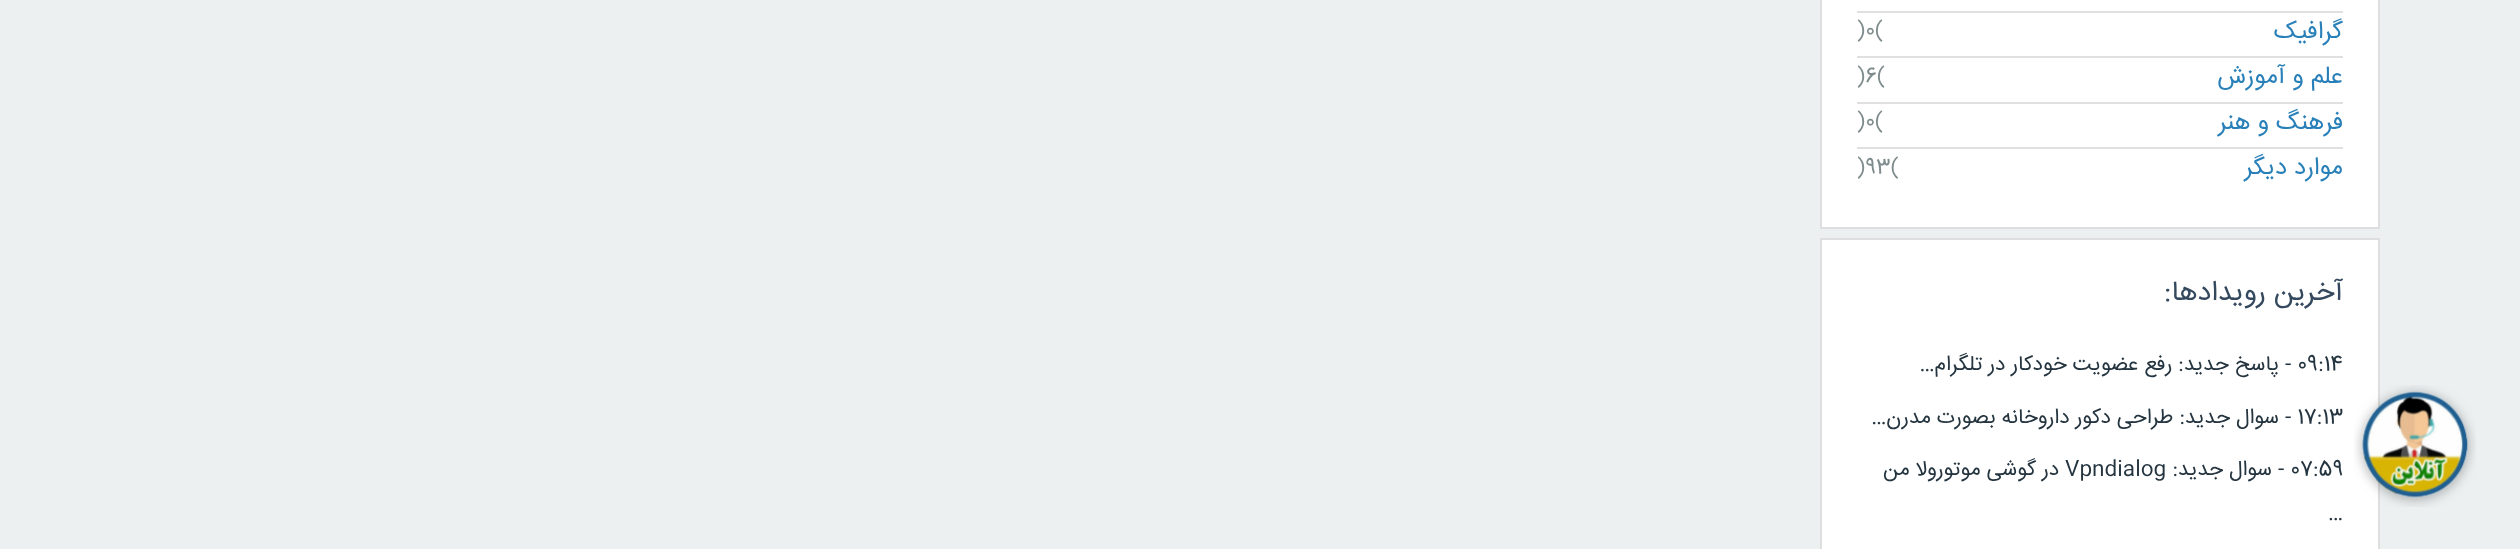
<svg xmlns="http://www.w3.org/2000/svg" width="2520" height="549">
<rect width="100%" height="100%" fill="#ecf0f1"/>
<rect x="1821" y="239" width="558" height="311" fill="#fff" stroke="#dedede" stroke-width="2"/>
<image x="2354" y="385" width="122" height="122" href="media/1.png"/>
<rect x="1821" y="-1" width="558" height="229" fill="#fff" stroke="#dedede" stroke-width="2"/>
<rect x="1857" y="11" width="486" height="2" fill="#e0e0e0"/>
<rect x="1857" y="56" width="486" height="2" fill="#e0e0e0"/>
<text x="2343" y="38" style="font-family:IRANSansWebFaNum;font-size:24.5px;direction:rtl;fill:#2980b9">گرافیک</text>
<text x="1857" y="36" style="font-family:IRANSansWebFaNum;font-size:21px;fill:#7f8c8d">)0(</text>
<rect x="1857" y="102" width="486" height="2" fill="#e0e0e0"/>
<text x="2343" y="83" style="font-family:IRANSansWebFaNum;font-size:24.5px;direction:rtl;fill:#2980b9">علم و آموزش</text>
<text x="1857" y="82" style="font-family:IRANSansWebFaNum;font-size:21px;fill:#7f8c8d">)6(</text>
<rect x="1857" y="147" width="486" height="2" fill="#e0e0e0"/>
<text x="2343" y="129" style="font-family:IRANSansWebFaNum;font-size:24.5px;direction:rtl;fill:#2980b9">فرهنگ و هنر</text>
<text x="1857" y="127" style="font-family:IRANSansWebFaNum;font-size:21px;fill:#7f8c8d">)0(</text>
<text x="2343" y="174" style="font-family:IRANSansWebFaNum;font-size:24.5px;direction:rtl;fill:#2980b9">موارد دیگر</text>
<text x="1857" y="173" style="font-family:IRANSansWebFaNum;font-size:21px;fill:#7f8c8d">)93(</text>
<text x="2343" y="300" style="font-family:IRANSansWebFaNum;font-size:28px;direction:rtl;fill:#34495e">آخرین رویدادها:</text>
<text x="2285" y="370" style="font-family:IRANSansWebFaNum;font-size:21px;fill:#253540">- 09:14</text>
<text x="2279" y="370" style="font-family:IRANSansWebFaNum;font-size:21px;direction:rtl;fill:#253540">پاسخ جدید: رفع عضویت خودکار در تلگرام…</text>
<text x="2285" y="423" style="font-family:IRANSansWebFaNum;font-size:21px;fill:#253540">- 17:13</text>
<text x="2279" y="423" style="font-family:IRANSansWebFaNum;font-size:21px;direction:rtl;fill:#253540">سوال جدید: طراحی دکور داروخانه بصورت مدرن…</text>
<text x="2278" y="475" style="font-family:IRANSansWebFaNum;font-size:21px;fill:#253540">- 07:59</text>
<text x="2272" y="475" style="font-family:IRANSansWebFaNum;font-size:21px;direction:rtl;fill:#253540">سوال جدید:</text>
<text x="2065" y="475" style="font-family:IRANSansWebFaNum;font-size:21px;fill:#253540">Vpndialog</text>
<text x="2059" y="475" style="font-family:IRANSansWebFaNum;font-size:21px;direction:rtl;fill:#253540">در گوشی موتورولا من</text>
<text x="2328" y="519" style="font-family:IRANSansWebFaNum;font-size:21px;fill:#253540">…</text>
</svg>
